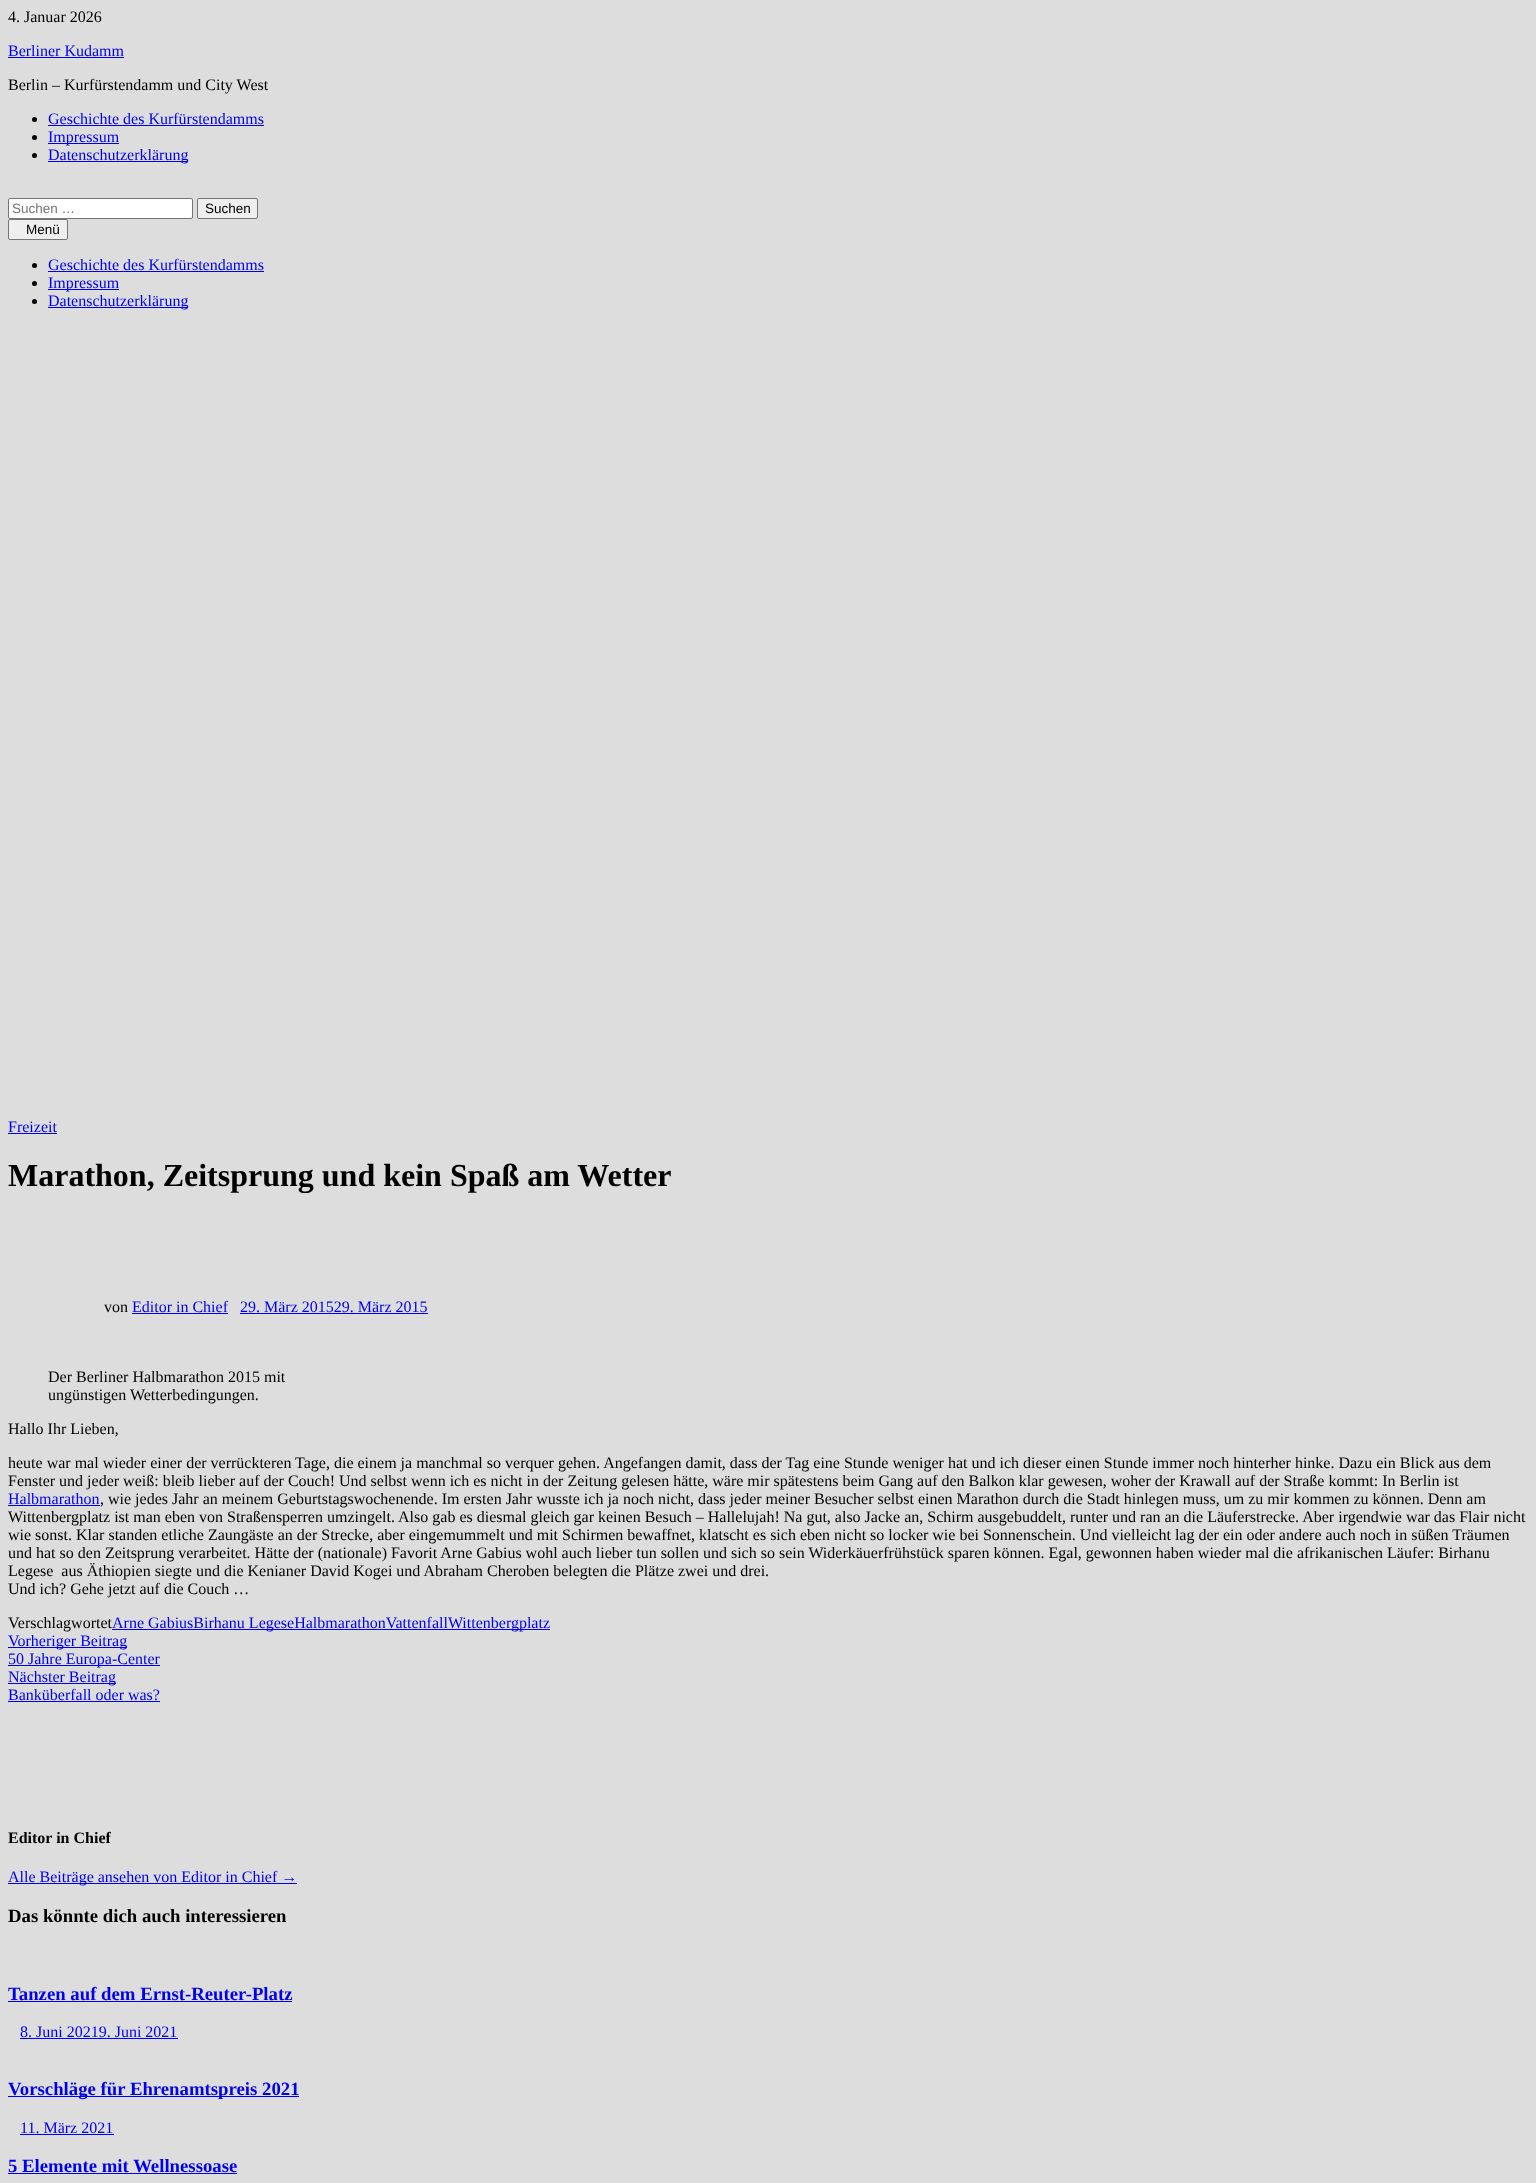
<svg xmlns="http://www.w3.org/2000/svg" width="1536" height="2183">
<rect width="100%" height="100%" fill="#ddd"/>
<text x="8" y="22" style="font-family:Liberation Serif;font-size:16px;fill:#000">4. Januar 2026</text>
<text x="8" y="56" style="font-family:Liberation Serif;font-size:16px;fill:#00e">Berliner Kudamm</text>
<rect x="8" y="57" width="116" height="1" fill="#00e"/>
<text x="8" y="90" style="font-family:Liberation Serif;font-size:16px;fill:#000">Berlin – Kurfürstendamm und City West</text>
<circle cx="34.5" cy="119.5" r="2.5" fill="#000"/>
<text x="48" y="124" style="font-family:Liberation Serif;font-size:16px;fill:#00e">Geschichte des Kurfürstendamms</text>
<rect x="48" y="125" width="216" height="1" fill="#00e"/>
<circle cx="34.5" cy="137.5" r="2.5" fill="#000"/>
<rect x="48" y="143" width="71" height="1" fill="#00e"/>
<text x="48" y="142" style="font-family:Liberation Serif;font-size:16px;fill:#00e">Impressum</text>
<circle cx="34.5" cy="155.5" r="2.5" fill="#000"/>
<rect x="48" y="161" width="140" height="1" fill="#00e"/>
<text x="48" y="160" style="font-family:Liberation Serif;font-size:16px;fill:#00e">Datenschutzerklärung</text>
<rect x="8.5" y="198.5" width="184" height="20" rx="1.5" fill="#fff" stroke="#767676"/>
<text x="12" y="213" style="font-family:Liberation Sans;font-size:13.5px;fill:#757575">Suchen …</text>
<rect x="197.5" y="198.5" width="60" height="20" rx="1.5" fill="#efefef" stroke="#767676"/>
<text x="205" y="213" style="font-family:Liberation Sans;font-size:13.5px;fill:#000">Suchen</text>
<rect x="8.5" y="219.5" width="59" height="20" rx="1.5" fill="#efefef" stroke="#767676"/>
<text x="26" y="234" style="font-family:Liberation Sans;font-size:13.5px;fill:#000">Menü</text>
<circle cx="34.5" cy="265.5" r="2.5" fill="#000"/>
<text x="48" y="270" style="font-family:Liberation Serif;font-size:16px;fill:#00e">Geschichte des Kurfürstendamms</text>
<rect x="48" y="271" width="216" height="1" fill="#00e"/>
<circle cx="34.5" cy="283.5" r="2.5" fill="#000"/>
<rect x="48" y="289" width="71" height="1" fill="#00e"/>
<text x="48" y="288" style="font-family:Liberation Serif;font-size:16px;fill:#00e">Impressum</text>
<circle cx="34.5" cy="301.5" r="2.5" fill="#000"/>
<rect x="48" y="307" width="140" height="1" fill="#00e"/>
<text x="48" y="306" style="font-family:Liberation Serif;font-size:16px;fill:#00e">Datenschutzerklärung</text>
<text x="8" y="1132" style="font-family:Liberation Serif;font-size:16px;fill:#00e">Freizeit</text>
<rect x="8" y="1133" width="49" height="1" fill="#00e"/>
<text x="8" y="1186" style="font-family:Liberation Serif;font-size:32px;font-weight:bold;fill:#000">Marathon, Zeitsprung und kein Spaß am Wetter</text>
<text x="104" y="1312" style="font-family:Liberation Serif;font-size:16px;fill:#000">von</text>
<rect x="132" y="1313" width="96" height="1" fill="#00e"/>
<text x="132" y="1312" style="font-family:Liberation Serif;font-size:16px;fill:#00e">Editor in Chief</text>
<text x="240" y="1312" style="font-family:Liberation Serif;font-size:16px;fill:#00e">29. März 201529. März 2015</text>
<rect x="240" y="1313" width="188" height="1" fill="#00e"/>
<text x="48" y="1382" style="font-family:Liberation Serif;font-size:16px;fill:#000">Der Berliner Halbmarathon 2015 mit</text>
<text x="48" y="1400" style="font-family:Liberation Serif;font-size:16px;fill:#000">ungünstigen Wetterbedingungen.</text>
<text x="8" y="1434" style="font-family:Liberation Serif;font-size:16px;fill:#000">Hallo Ihr Lieben,</text>
<text x="8" y="1468" style="font-family:Liberation Serif;font-size:16px;fill:#000">heute war mal wieder einer der verrückteren Tage, die einem ja manchmal so verquer gehen. Angefangen damit, dass der Tag eine Stunde weniger hat und ich dieser einen Stunde immer noch hinterher hinke. Dazu ein Blick aus dem</text>
<text x="8" y="1486" style="font-family:Liberation Serif;font-size:16px;fill:#000">Fenster und jeder weiß: bleib lieber auf der Couch! Und selbst wenn ich es nicht in der Zeitung gelesen hätte, wäre mir spätestens beim Gang auf den Balkon klar gewesen, woher der Krawall auf der Straße kommt: In Berlin ist</text>
<text x="8" y="1504" style="font-family:Liberation Serif;font-size:16px;fill:#00e">Halbmarathon</text>
<rect x="8" y="1505" width="92" height="1" fill="#00e"/>
<text x="100" y="1504" style="font-family:Liberation Serif;font-size:16px;fill:#000">, wie jedes Jahr an meinem Geburtstagswochenende. Im ersten Jahr wusste ich ja noch nicht, dass jeder meiner Besucher selbst einen Marathon durch die Stadt hinlegen muss, um zu mir kommen zu können. Denn am</text>
<text x="8" y="1522" style="font-family:Liberation Serif;font-size:16px;fill:#000">Wittenbergplatz ist man eben von Straßensperren umzingelt. Also gab es diesmal gleich gar keinen Besuch – Hallelujah! Na gut, also Jacke an, Schirm ausgebuddelt, runter und ran an die Läuferstrecke. Aber irgendwie war das Flair nicht</text>
<text x="8" y="1540" style="font-family:Liberation Serif;font-size:16px;fill:#000">wie sonst. Klar standen etliche Zaungäste an der Strecke, aber eingemummelt und mit Schirmen bewaffnet, klatscht es sich eben nicht so locker wie bei Sonnenschein. Und vielleicht lag der ein oder andere auch noch in süßen Träumen</text>
<text x="8" y="1558" style="font-family:Liberation Serif;font-size:16px;fill:#000">und hat so den Zeitsprung verarbeitet. Hätte der (nationale) Favorit Arne Gabius wohl auch lieber tun sollen und sich so sein Widerkäuerfrühstück sparen können. Egal, gewonnen haben wieder mal die afrikanischen Läufer: Birhanu</text>
<text x="8" y="1576" style="font-family:Liberation Serif;font-size:16px;fill:#000" xml:space="preserve">Legese  aus Äthiopien siegte und die Kenianer David Kogei und Abraham Cheroben belegten die Plätze zwei und drei.</text>
<text x="8" y="1594" style="font-family:Liberation Serif;font-size:16px;fill:#000">Und ich? Gehe jetzt auf die Couch …</text>
<text x="8" y="1628" style="font-family:Liberation Serif;font-size:16px;fill:#000">Verschlagwortet</text>
<rect x="112" y="1629" width="438" height="1" fill="#00e"/>
<text x="112" y="1628" style="font-family:Liberation Serif;font-size:16px;fill:#00e">Arne GabiusBirhanu LegeseHalbmarathonVattenfallWittenbergplatz</text>
<rect x="8" y="1647" width="119" height="1" fill="#00e"/>
<text x="8" y="1646" style="font-family:Liberation Serif;font-size:16px;fill:#00e">Vorheriger Beitrag</text>
<rect x="8" y="1665" width="152" height="1" fill="#00e"/>
<text x="8" y="1664" style="font-family:Liberation Serif;font-size:16px;fill:#00e">50 Jahre Europa-Center</text>
<rect x="8" y="1683" width="108" height="1" fill="#00e"/>
<text x="8" y="1682" style="font-family:Liberation Serif;font-size:16px;fill:#00e">Nächster Beitrag</text>
<text x="8" y="1700" style="font-family:Liberation Serif;font-size:16px;fill:#00e">Banküberfall oder was?</text>
<rect x="8" y="1701" width="152" height="1" fill="#00e"/>
<text x="8" y="1843" style="font-family:Liberation Serif;font-size:16px;font-weight:bold;fill:#000">Editor in Chief</text>
<rect x="8" y="1883" width="289" height="1" fill="#00e"/>
<text x="8" y="1882" style="font-family:Liberation Serif;font-size:16px;fill:#00e">Alle Beiträge ansehen von Editor in Chief →</text>
<text x="8" y="1922" style="font-family:Liberation Serif;font-size:18.75px;font-weight:bold;fill:#000">Das könnte dich auch interessieren</text>
<text x="8" y="2000" style="font-family:Liberation Serif;font-size:18.75px;font-weight:bold;fill:#00e">Tanzen auf dem Ernst-Reuter-Platz</text>
<rect x="8" y="2001" width="284" height="1" fill="#00e"/>
<text x="20" y="2037" style="font-family:Liberation Serif;font-size:16px;fill:#00e">8. Juni 20219. Juni 2021</text>
<rect x="20" y="2038" width="158" height="1" fill="#00e"/>
<rect x="8" y="2096" width="291" height="1" fill="#00e"/>
<text x="8" y="2095" style="font-family:Liberation Serif;font-size:18.75px;font-weight:bold;fill:#00e">Vorschläge für Ehrenamtspreis 2021</text>
<text x="20" y="2133" style="font-family:Liberation Serif;font-size:16px;fill:#00e">11. März 2021</text>
<rect x="20" y="2134" width="94" height="1" fill="#00e"/>
<text x="8" y="2172" style="font-family:Liberation Serif;font-size:18.75px;font-weight:bold;fill:#00e">5 Elemente mit Wellnessoase</text>
<rect x="8" y="2173" width="229" height="1" fill="#00e"/>
</svg>
